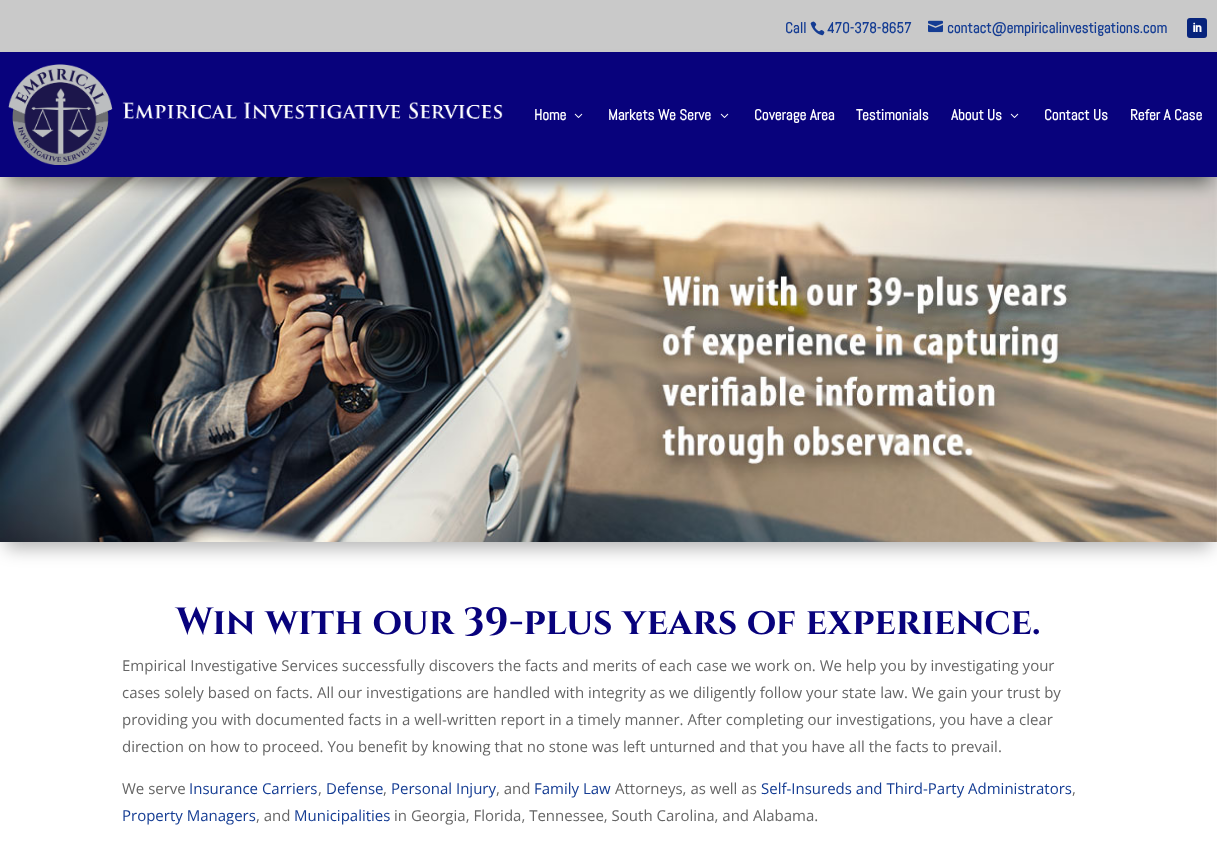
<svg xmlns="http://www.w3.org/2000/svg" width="1217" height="848">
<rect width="100%" height="100%" fill="#fff"/>
<rect width="1217" height="52" fill="#c9c9c9"/>
<text x="785" y="33" style="font-family:Abel;font-size:15px;font-weight:bold;fill:#143c93">Call</text>
<image x="810" y="21" width="15" height="15" href="media/1.png"/>
<text x="827" y="33" style="font-family:Abel;font-size:15px;font-weight:bold;fill:#143c93">470-378-8657</text>
<image x="928" y="20" width="15" height="13" href="media/2.png"/>
<text x="947" y="33" style="font-family:Abel;font-size:15px;font-weight:bold;fill:#143c93">contact@empiricalinvestigations.com</text>
<rect x="1187" y="18" width="20" height="20" rx="3" fill="#07247c"/>
<image x="1193" y="22" width="9" height="10" href="media/3.png"/>
<rect x="6" y="195" width="1205" height="353" fill="#0000004d" filter="blur(9px)"/>
<image x="0" y="177" width="1217" height="365" href="media/6.png"/>
<rect x="6" y="70" width="1205" height="113" fill="#00000082" filter="blur(9px)"/>
<rect y="52" width="1217" height="125" fill="#08027c"/>
<image x="8" y="64" width="495" height="101" href="media/4.png"/>
<text x="534" y="120" style="font-family:Abel;font-size:15px;font-weight:bold;fill:#fff">Home</text>
<image x="574" y="113" width="9" height="5" href="media/5.png"/>
<text x="608" y="120" style="font-family:Abel;font-size:15px;font-weight:bold;fill:#fff">Markets We Serve</text>
<image x="720" y="113" width="9" height="5" href="media/5.png"/>
<text x="754" y="120" style="font-family:Abel;font-size:15px;font-weight:bold;fill:#fff">Coverage Area</text>
<text x="856" y="120" style="font-family:Abel;font-size:15px;font-weight:bold;fill:#fff">Testimonials</text>
<text x="951" y="120" style="font-family:Abel;font-size:15px;font-weight:bold;fill:#fff">About Us</text>
<image x="1010" y="113" width="9" height="5" href="media/5.png"/>
<text x="1044" y="120" style="font-family:Abel;font-size:15px;font-weight:bold;fill:#fff">Contact Us</text>
<text x="1130" y="120" style="font-family:Abel;font-size:15px;font-weight:bold;fill:#fff">Refer A Case</text>
<text x="176" y="634" style="font-family:Cinzel;font-size:38px;font-weight:bold;fill:#08027c">Win with our 39-plus years of experience.</text>
<text x="122" y="671" style="font-family:Open Sans;font-size:15px;fill:#666">Empirical Investigative Services successfully discovers the facts and merits of each case we work on. We help you by investigating your</text>
<text x="122" y="698" style="font-family:Open Sans;font-size:15px;fill:#666">cases solely based on facts. All our investigations are handled with integrity as we diligently follow your state law. We gain your trust by</text>
<text x="122" y="725" style="font-family:Open Sans;font-size:15px;fill:#666">providing you with documented facts in a well-written report in a timely manner. After completing our investigations, you have a clear</text>
<text x="122" y="752" style="font-family:Open Sans;font-size:15px;fill:#666">direction on how to proceed. You benefit by knowing that no stone was left unturned and that you have all the facts to prevail.</text>
<text x="122" y="794" style="font-family:Open Sans;font-size:15px;fill:#666">We serve</text>
<text x="189" y="794" style="font-family:Open Sans;font-size:15px;fill:#143c93">Insurance Carriers</text>
<text x="318" y="794" style="font-family:Open Sans;font-size:15px;fill:#666">,</text>
<text x="326" y="794" style="font-family:Open Sans;font-size:15px;fill:#143c93">Defense</text>
<text x="383" y="794" style="font-family:Open Sans;font-size:15px;fill:#666">,</text>
<text x="391" y="794" style="font-family:Open Sans;font-size:15px;fill:#143c93">Personal Injury</text>
<text x="496" y="794" style="font-family:Open Sans;font-size:15px;fill:#666">, and</text>
<text x="534" y="794" style="font-family:Open Sans;font-size:15px;fill:#143c93">Family Law</text>
<text x="615" y="794" style="font-family:Open Sans;font-size:15px;fill:#666">Attorneys, as well as</text>
<text x="761" y="794" style="font-family:Open Sans;font-size:15px;fill:#143c93">Self-Insureds and Third-Party Administrators</text>
<text x="1072" y="794" style="font-family:Open Sans;font-size:15px;fill:#666">,</text>
<text x="122" y="821" style="font-family:Open Sans;font-size:15px;fill:#143c93">Property Managers</text>
<text x="256" y="821" style="font-family:Open Sans;font-size:15px;fill:#666">, and</text>
<text x="294" y="821" style="font-family:Open Sans;font-size:15px;fill:#143c93">Municipalities</text>
<text x="394" y="821" style="font-family:Open Sans;font-size:15px;fill:#666">in Georgia, Florida, Tennessee, South Carolina, and Alabama.</text>
</svg>
